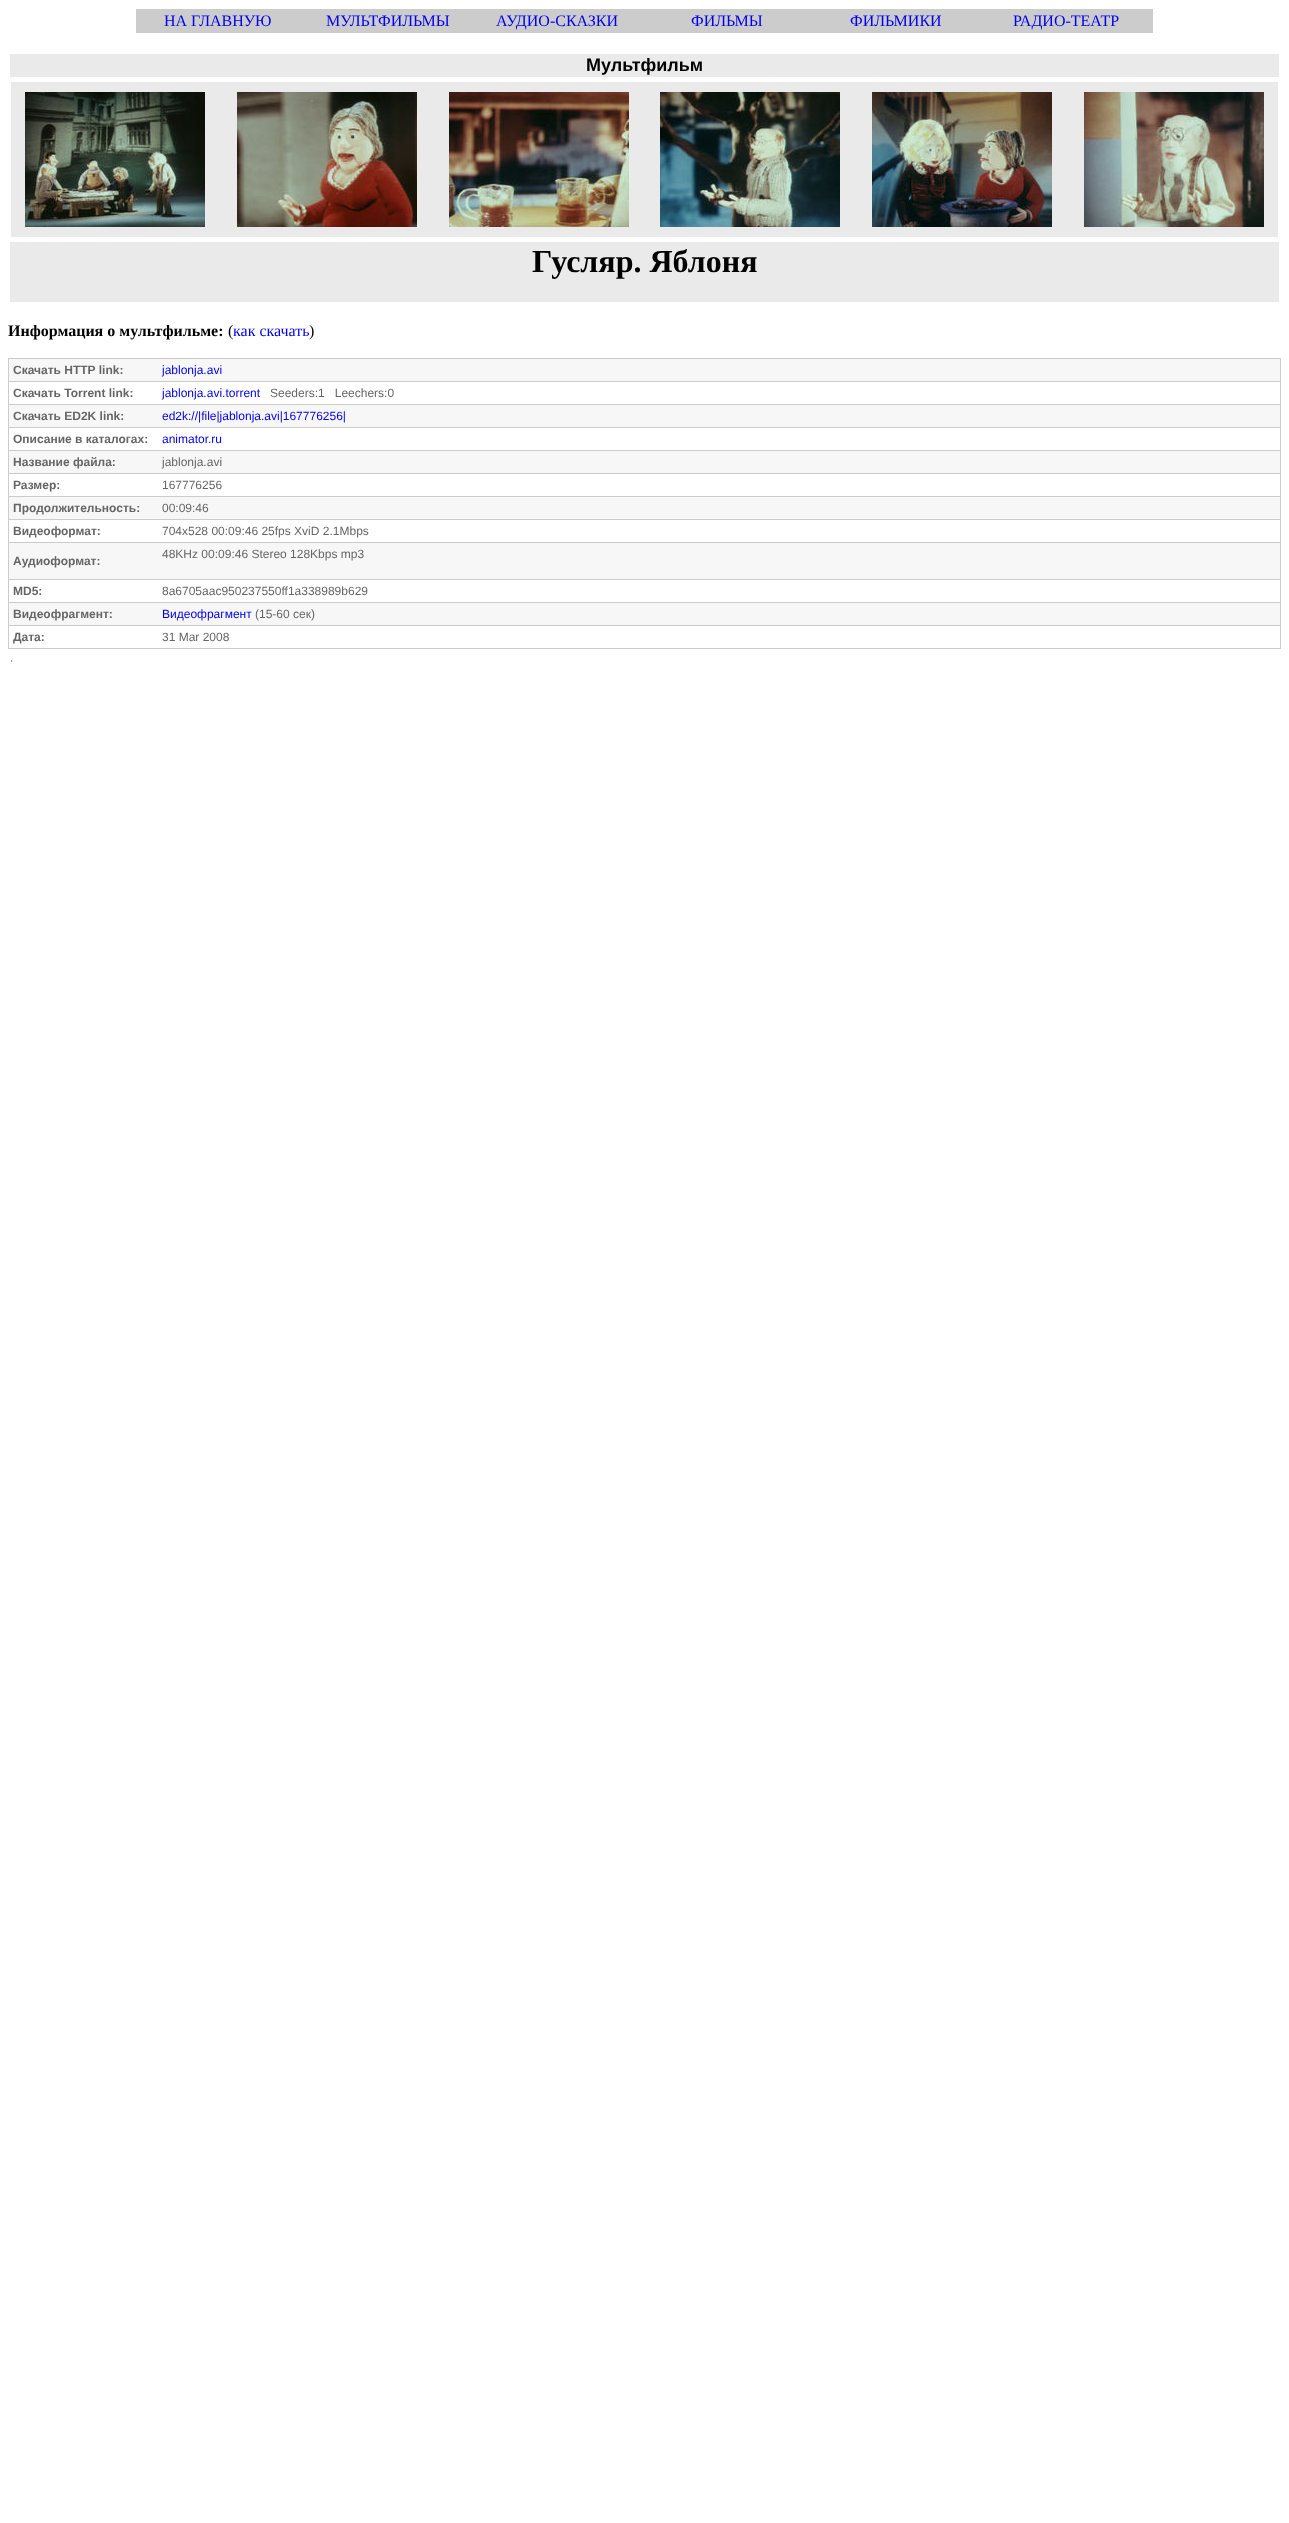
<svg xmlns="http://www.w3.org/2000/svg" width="1289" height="2523">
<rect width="100%" height="100%" fill="#fff"/>
<rect x="136" y="9" width="1017" height="24" fill="#ccc"/>
<text x="164" y="26" style="font-family:Liberation Serif;font-size:16px;fill:#00e">НА ГЛАВНУЮ</text>
<text x="326" y="26" style="font-family:Liberation Serif;font-size:16px;fill:#00e">МУЛЬТФИЛЬМЫ</text>
<text x="496" y="26" style="font-family:Liberation Serif;font-size:16px;fill:#00e">АУДИО-СКАЗКИ</text>
<text x="691" y="26" style="font-family:Liberation Serif;font-size:16px;fill:#00e">ФИЛЬМЫ</text>
<text x="850" y="26" style="font-family:Liberation Serif;font-size:16px;fill:#00e">ФИЛЬМИКИ</text>
<text x="1013" y="26" style="font-family:Liberation Serif;font-size:16px;fill:#00e">РАДИО-ТЕАТР</text>
<rect x="10" y="54" width="1269" height="23" fill="#eaeaea"/>
<text x="586" y="71" style="font-family:Liberation Sans;font-size:18px;font-weight:bold;fill:#000">Мультфильм</text>
<rect x="11" y="82" width="1267" height="155" fill="#eaeaea"/>
<image x="25" y="92" width="180" height="135" href="media/1.png"/>
<image x="237" y="92" width="180" height="135" href="media/2.png"/>
<image x="449" y="92" width="180" height="135" href="media/3.png"/>
<image x="660" y="92" width="180" height="135" href="media/4.png"/>
<image x="872" y="92" width="180" height="135" href="media/5.png"/>
<image x="1084" y="92" width="180" height="135" href="media/6.png"/>
<rect x="10" y="242" width="1269" height="60" fill="#eaeaea"/>
<text x="532" y="272" style="font-family:Liberation Serif;font-size:32px;font-weight:bold;fill:#000">Гусляр. Яблоня</text>
<text x="8" y="336" style="font-family:Liberation Serif;font-size:16px;font-weight:bold;fill:#000">Информация о мультфильме:</text>
<text x="228" y="336" style="font-family:Liberation Serif;font-size:16px;fill:#000">(</text>
<text x="233" y="336" style="font-family:Liberation Serif;font-size:16px;fill:#00e">как скачать</text>
<text x="309" y="336" style="font-family:Liberation Serif;font-size:16px;fill:#000">)</text>
<rect x="8" y="358" width="1273" height="291" fill="#ccc"/>
<rect x="9" y="359" width="1271" height="22" fill="#f7f7f7"/>
<text x="13" y="374" style="font-family:Liberation Sans;font-size:12px;font-weight:bold;fill:#666">Скачать HTTP link:</text>
<text x="162" y="374" style="font-family:Liberation Sans;font-size:12px;fill:#00e">jablonja.avi</text>
<rect x="9" y="382" width="1271" height="22" fill="#fff"/>
<text x="13" y="397" style="font-family:Liberation Sans;font-size:12px;font-weight:bold;fill:#666">Скачать Torrent link:</text>
<text x="162" y="397" style="font-family:Liberation Sans;font-size:12px;fill:#00e">jablonja.avi.torrent</text>
<text x="270" y="397" style="font-family:Liberation Sans;font-size:12px;fill:#666" xml:space="preserve">Seeders:1   Leechers:0</text>
<rect x="9" y="405" width="1271" height="22" fill="#f7f7f7"/>
<text x="13" y="420" style="font-family:Liberation Sans;font-size:12px;font-weight:bold;fill:#666">Скачать ED2K link:</text>
<text x="162" y="420" style="font-family:Liberation Sans;font-size:12px;fill:#00e">ed2k://|file|jablonja.avi|167776256|</text>
<rect x="9" y="428" width="1271" height="22" fill="#fff"/>
<text x="13" y="443" style="font-family:Liberation Sans;font-size:12px;font-weight:bold;fill:#666">Описание в каталогах:</text>
<text x="162" y="443" style="font-family:Liberation Sans;font-size:12px;fill:#00e">animator.ru</text>
<rect x="9" y="451" width="1271" height="22" fill="#f7f7f7"/>
<text x="13" y="466" style="font-family:Liberation Sans;font-size:12px;font-weight:bold;fill:#666">Название файла:</text>
<text x="162" y="466" style="font-family:Liberation Sans;font-size:12px;fill:#666">jablonja.avi</text>
<rect x="9" y="474" width="1271" height="22" fill="#fff"/>
<text x="13" y="489" style="font-family:Liberation Sans;font-size:12px;font-weight:bold;fill:#666">Размер:</text>
<text x="162" y="489" style="font-family:Liberation Sans;font-size:12px;fill:#666">167776256</text>
<rect x="9" y="497" width="1271" height="22" fill="#f7f7f7"/>
<text x="13" y="512" style="font-family:Liberation Sans;font-size:12px;font-weight:bold;fill:#666">Продолжительность:</text>
<text x="162" y="512" style="font-family:Liberation Sans;font-size:12px;fill:#666">00:09:46</text>
<rect x="9" y="520" width="1271" height="22" fill="#fff"/>
<text x="13" y="535" style="font-family:Liberation Sans;font-size:12px;font-weight:bold;fill:#666">Видеоформат:</text>
<text x="162" y="535" style="font-family:Liberation Sans;font-size:12px;fill:#666">704x528 00:09:46 25fps XviD 2.1Mbps</text>
<rect x="9" y="543" width="1271" height="36" fill="#f7f7f7"/>
<text x="13" y="565" style="font-family:Liberation Sans;font-size:12px;font-weight:bold;fill:#666">Аудиоформат:</text>
<text x="162" y="558" style="font-family:Liberation Sans;font-size:12px;fill:#666">48KHz 00:09:46 Stereo 128Kbps mp3</text>
<rect x="9" y="580" width="1271" height="22" fill="#fff"/>
<text x="13" y="595" style="font-family:Liberation Sans;font-size:12px;font-weight:bold;fill:#666">MD5:</text>
<text x="162" y="595" style="font-family:Liberation Sans;font-size:12px;fill:#666">8a6705aac950237550ff1a338989b629</text>
<rect x="9" y="603" width="1271" height="22" fill="#f7f7f7"/>
<text x="13" y="618" style="font-family:Liberation Sans;font-size:12px;font-weight:bold;fill:#666">Видеофрагмент:</text>
<text x="162" y="618" style="font-family:Liberation Sans;font-size:12px;fill:#00e">Видеофрагмент</text>
<text x="255" y="618" style="font-family:Liberation Sans;font-size:12px;fill:#666">(15-60 сек)</text>
<rect x="9" y="626" width="1271" height="22" fill="#fff"/>
<text x="13" y="641" style="font-family:Liberation Sans;font-size:12px;font-weight:bold;fill:#666">Дата:</text>
<text x="162" y="641" style="font-family:Liberation Sans;font-size:12px;fill:#666">31 Mar 2008</text>
<rect x="12" y="660" width="1" height="2" fill="#eee"/>
<rect x="11" y="661" width="2" height="1" fill="#eee"/>
<rect x="11" y="660" width="1" height="2" fill="#9f9f9f"/>
</svg>
